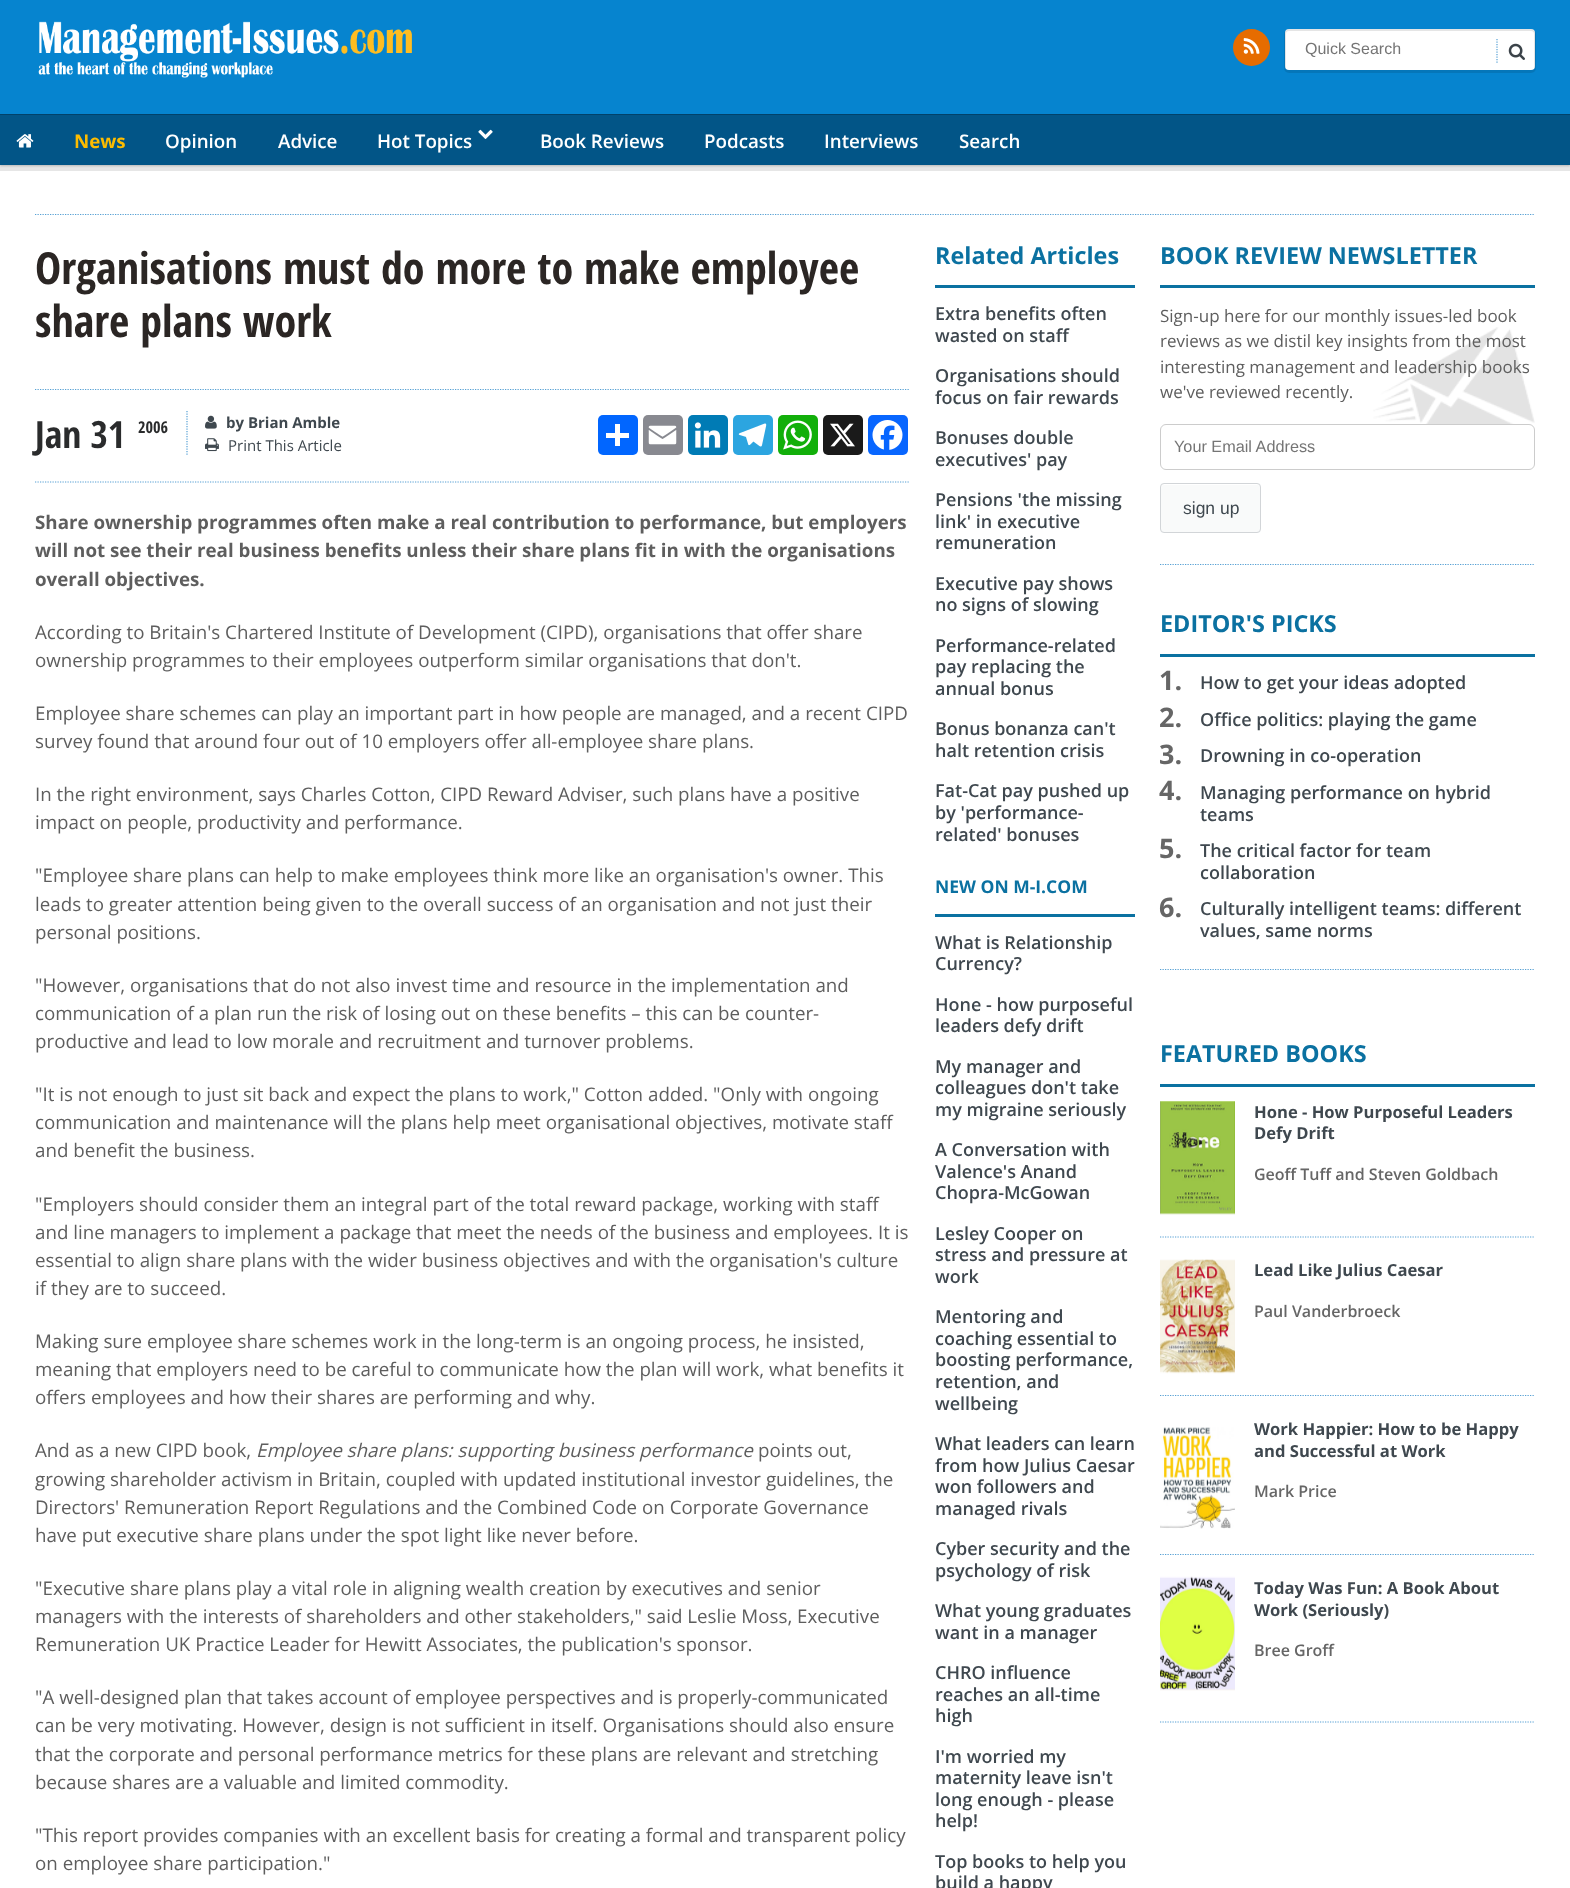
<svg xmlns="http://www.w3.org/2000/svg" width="1570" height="1888">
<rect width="100%" height="100%" fill="#fff"/>
<rect width="1570" height="114" fill="#0684cf"/>
<image x="38" y="21" width="374" height="57" href="media/1.png"/>
<circle cx="1251.5" cy="47.5" r="18.5" fill="#e66c00"/>
<image x="1243" y="38" width="17" height="16" href="media/2.png"/>
<rect x="1284" y="29" width="252" height="44" rx="5" fill="#0000001a" filter="blur(0.5px)"/>
<rect x="1285" y="29" width="250" height="41" rx="4" fill="#fff"/>
<path d="M1289 31h242c2 0 3 1 3 3v34v1c0-1 1-2 1-3v-33c0-2-2-4-4-4h-242c-2 0-4 2-4 4v33c0 1 1 2 1 3v-1v-34c0-2 1-3 3-3z" fill="#0000001a"/>
<text x="1305" y="54" style="font-family:Liberation Sans;font-size:16px;fill:#757575">Quick Search</text>
<path d="M1497 39v25" fill="none" stroke="#56a0d4" stroke-width="1.2" stroke-dasharray="1.25 1.25"/>
<image x="1508" y="43" width="17" height="17" href="media/3.png"/>
<rect y="165" width="1570" height="6" fill="#e6e6e6"/>
<rect y="114" width="1570" height="1" fill="#02446c"/>
<rect y="116" width="1570" height="50" fill="#00000033" filter="blur(1px)"/>
<rect y="115" width="1570" height="50" fill="#025587"/>
<image x="16" y="134" width="18" height="14" href="media/4.png"/>
<text x="74" y="148" style="font-family:Open Sans;font-size:18.75px;font-weight:bold;fill:#fdbc00">News</text>
<text x="165" y="148" style="font-family:Open Sans;font-size:18.75px;font-weight:600;fill:#fff">Opinion</text>
<text x="278" y="148" style="font-family:Open Sans;font-size:18.75px;font-weight:600;fill:#fff">Advice</text>
<text x="377" y="148" style="font-family:Open Sans;font-size:18.75px;font-weight:600;fill:#fff">Hot Topics</text>
<image x="478" y="129" width="15" height="10" href="media/5.png"/>
<text x="540" y="148" style="font-family:Open Sans;font-size:18.75px;font-weight:600;fill:#fff">Book Reviews</text>
<text x="704" y="148" style="font-family:Open Sans;font-size:18.75px;font-weight:600;fill:#fff">Podcasts</text>
<text x="824" y="148" style="font-family:Open Sans;font-size:18.75px;font-weight:600;fill:#fff">Interviews</text>
<text x="959" y="148" style="font-family:Open Sans;font-size:18.75px;font-weight:600;fill:#fff">Search</text>
<path d="M35 214.5h1500" fill="none" stroke="#56a0d4" stroke-width="1.2" stroke-dasharray="1.25 1.25"/>
<path d="M35 482h875" fill="none" stroke="#56a0d4" stroke-width="1.2" stroke-dasharray="1.25 1.25"/>
<text x="35" y="284" style="font-family:Open Sans Condensed;font-size:44px;font-weight:bold;fill:#2b2624">Organisations must do more to make employee</text>
<text x="35" y="337" style="font-family:Open Sans Condensed;font-size:44px;font-weight:bold;fill:#2b2624">share plans work</text>
<path d="M35 389.5h875" fill="none" stroke="#56a0d4" stroke-width="1.2" stroke-dasharray="1.25 1.25"/>
<text x="35" y="448" style="font-family:Open Sans Condensed;font-size:37.5px;font-weight:bold;fill:#2a2b2c">Jan 31</text>
<text x="138" y="433" style="font-family:Open Sans Condensed;font-size:16.25px;font-weight:bold;fill:#2a2b2c">2006</text>
<path d="M187 411v45" fill="none" stroke="#56a0d4" stroke-width="1.2" stroke-dasharray="1.25 1.25"/>
<image x="205" y="415" width="12" height="14" href="media/6.png"/>
<text x="226" y="428" style="font-family:Open Sans;font-size:15px;font-weight:bold;fill:#3f484f">by Brian Amble</text>
<image x="205" y="438" width="14" height="14" href="media/7.png"/>
<text x="228" y="451" style="font-family:Open Sans;font-size:15px;fill:#3f484f">Print This Article</text>
<rect x="598" y="415" width="40" height="40" rx="5" fill="#0166ff"/>
<rect x="615" y="424" width="5" height="22" fill="#fff"/>
<rect x="606" y="433" width="23" height="5" fill="#fff"/>
<rect x="643" y="415" width="40" height="40" rx="5" fill="#888990"/>
<image x="648" y="425" width="29" height="20" href="media/8.png"/>
<rect x="688" y="415" width="40" height="40" rx="5" fill="#007bb5"/>
<image x="694" y="422" width="27" height="26" href="media/9.png"/>
<rect x="733" y="415" width="40" height="40" rx="5" fill="#2ca5e0"/>
<image x="738" y="423" width="29" height="24" href="media/10.png"/>
<rect x="778" y="415" width="40" height="40" rx="5" fill="#12af0a"/>
<image x="783" y="420" width="29" height="30" href="media/11.png"/>
<rect x="823" y="415" width="40" height="40" rx="5" fill="#1a1a1a"/>
<image x="830" y="423" width="25" height="24" href="media/12.png"/>
<rect x="868" y="415" width="40" height="40" rx="5" fill="#0866ff"/>
<image x="872" y="420" width="31" height="30" href="media/13.png"/>
<text x="35" y="529" style="font-family:Open Sans;font-size:18.75px;font-weight:bold;fill:#5e5e5e">Share ownership programmes often make a real contribution to performance, but employers</text>
<text x="35" y="557" style="font-family:Open Sans;font-size:18.75px;font-weight:bold;fill:#5e5e5e">will not see their real business benefits unless their share plans fit in with the organisations</text>
<text x="35" y="586" style="font-family:Open Sans;font-size:18.75px;font-weight:bold;fill:#5e5e5e">overall objectives.</text>
<text x="35" y="639" style="font-family:Open Sans;font-size:18.75px;fill:#5e5e5e">According to Britain's Chartered Institute of Development (CIPD), organisations that offer share</text>
<text x="35" y="667" style="font-family:Open Sans;font-size:18.75px;fill:#5e5e5e">ownership programmes to their employees outperform similar organisations that don't.</text>
<text x="35" y="720" style="font-family:Open Sans;font-size:18.75px;fill:#5e5e5e">Employee share schemes can play an important part in how people are managed, and a recent CIPD</text>
<text x="35" y="748" style="font-family:Open Sans;font-size:18.75px;fill:#5e5e5e">survey found that around four out of 10 employers offer all-employee share plans.</text>
<text x="35" y="801" style="font-family:Open Sans;font-size:18.75px;fill:#5e5e5e">In the right environment, says Charles Cotton, CIPD Reward Adviser, such plans have a positive</text>
<text x="35" y="829" style="font-family:Open Sans;font-size:18.75px;fill:#5e5e5e">impact on people, productivity and performance.</text>
<text x="35" y="882" style="font-family:Open Sans;font-size:18.75px;fill:#5e5e5e">"Employee share plans can help to make employees think more like an organisation's owner. This</text>
<text x="35" y="911" style="font-family:Open Sans;font-size:18.75px;fill:#5e5e5e">leads to greater attention being given to the overall success of an organisation and not just their</text>
<text x="35" y="939" style="font-family:Open Sans;font-size:18.75px;fill:#5e5e5e">personal positions.</text>
<text x="35" y="992" style="font-family:Open Sans;font-size:18.75px;fill:#5e5e5e">"However, organisations that do not also invest time and resource in the implementation and</text>
<text x="35" y="1020" style="font-family:Open Sans;font-size:18.75px;fill:#5e5e5e">communication of a plan run the risk of losing out on these benefits – this can be counter-</text>
<text x="35" y="1048" style="font-family:Open Sans;font-size:18.75px;fill:#5e5e5e">productive and lead to low morale and recruitment and turnover problems.</text>
<text x="35" y="1101" style="font-family:Open Sans;font-size:18.75px;fill:#5e5e5e">"It is not enough to just sit back and expect the plans to work," Cotton added. "Only with ongoing</text>
<text x="35" y="1129" style="font-family:Open Sans;font-size:18.75px;fill:#5e5e5e">communication and maintenance will the plans help meet organisational objectives, motivate staff</text>
<text x="35" y="1157" style="font-family:Open Sans;font-size:18.75px;fill:#5e5e5e">and benefit the business.</text>
<text x="35" y="1211" style="font-family:Open Sans;font-size:18.75px;fill:#5e5e5e">"Employers should consider them an integral part of the total reward package, working with staff</text>
<text x="35" y="1239" style="font-family:Open Sans;font-size:18.75px;fill:#5e5e5e">and line managers to implement a package that meet the needs of the business and employees. It is</text>
<text x="35" y="1267" style="font-family:Open Sans;font-size:18.75px;fill:#5e5e5e">essential to align share plans with the wider business objectives and with the organisation's culture</text>
<text x="35" y="1295" style="font-family:Open Sans;font-size:18.75px;fill:#5e5e5e">if they are to succeed.</text>
<text x="35" y="1348" style="font-family:Open Sans;font-size:18.75px;fill:#5e5e5e">Making sure employee share schemes work in the long-term is an ongoing process, he insisted,</text>
<text x="35" y="1376" style="font-family:Open Sans;font-size:18.75px;fill:#5e5e5e">meaning that employers need to be careful to communicate how the plan will work, what benefits it</text>
<text x="35" y="1404" style="font-family:Open Sans;font-size:18.75px;fill:#5e5e5e">offers employees and how their shares are performing and why.</text>
<text x="35" y="1457" style="font-family:Open Sans;font-size:18.75px;fill:#5e5e5e">And as a new CIPD book,</text>
<text x="256" y="1457" style="font-family:Open Sans;font-size:18.75px;font-style:italic;fill:#5e5e5e">Employee share plans: supporting business performance</text>
<text x="758" y="1457" style="font-family:Open Sans;font-size:18.75px;fill:#5e5e5e">points out,</text>
<text x="35" y="1486" style="font-family:Open Sans;font-size:18.75px;fill:#5e5e5e">growing shareholder activism in Britain, coupled with updated institutional investor guidelines, the</text>
<text x="35" y="1514" style="font-family:Open Sans;font-size:18.75px;fill:#5e5e5e">Directors' Remuneration Report Regulations and the Combined Code on Corporate Governance</text>
<text x="35" y="1542" style="font-family:Open Sans;font-size:18.75px;fill:#5e5e5e">have put executive share plans under the spot light like never before.</text>
<text x="35" y="1595" style="font-family:Open Sans;font-size:18.75px;fill:#5e5e5e">"Executive share plans play a vital role in aligning wealth creation by executives and senior</text>
<text x="35" y="1623" style="font-family:Open Sans;font-size:18.75px;fill:#5e5e5e">managers with the interests of shareholders and other stakeholders," said Leslie Moss, Executive</text>
<text x="35" y="1651" style="font-family:Open Sans;font-size:18.75px;fill:#5e5e5e">Remuneration UK Practice Leader for Hewitt Associates, the publication's sponsor.</text>
<text x="35" y="1704" style="font-family:Open Sans;font-size:18.75px;fill:#5e5e5e">"A well-designed plan that takes account of employee perspectives and is properly-communicated</text>
<text x="35" y="1732" style="font-family:Open Sans;font-size:18.75px;fill:#5e5e5e">can be very motivating. However, design is not sufficient in itself. Organisations should also ensure</text>
<text x="35" y="1761" style="font-family:Open Sans;font-size:18.75px;fill:#5e5e5e">that the corporate and personal performance metrics for these plans are relevant and stretching</text>
<text x="35" y="1789" style="font-family:Open Sans;font-size:18.75px;fill:#5e5e5e">because shares are a valuable and limited commodity.</text>
<text x="35" y="1842" style="font-family:Open Sans;font-size:18.75px;fill:#5e5e5e">"This report provides companies with an excellent basis for creating a formal and transparent policy</text>
<text x="35" y="1870" style="font-family:Open Sans;font-size:18.75px;fill:#5e5e5e">on employee share participation."</text>
<rect x="935" y="285" width="200" height="3" fill="#0b71a1"/>
<text x="935" y="264" style="font-family:Open Sans;font-size:23.4px;font-weight:bold;fill:#0b71a1">Related Articles</text>
<text x="935" y="320" style="font-family:Open Sans;font-size:18px;font-weight:600;fill:#3f484f">Extra benefits often</text>
<text x="935" y="342" style="font-family:Open Sans;font-size:18px;font-weight:600;fill:#3f484f">wasted on staff</text>
<text x="935" y="382" style="font-family:Open Sans;font-size:18px;font-weight:600;fill:#3f484f">Organisations should</text>
<text x="935" y="404" style="font-family:Open Sans;font-size:18px;font-weight:600;fill:#3f484f">focus on fair rewards</text>
<text x="935" y="444" style="font-family:Open Sans;font-size:18px;font-weight:600;fill:#3f484f">Bonuses double</text>
<text x="935" y="466" style="font-family:Open Sans;font-size:18px;font-weight:600;fill:#3f484f">executives' pay</text>
<text x="935" y="506" style="font-family:Open Sans;font-size:18px;font-weight:600;fill:#3f484f">Pensions 'the missing</text>
<text x="935" y="528" style="font-family:Open Sans;font-size:18px;font-weight:600;fill:#3f484f">link' in executive</text>
<text x="935" y="549" style="font-family:Open Sans;font-size:18px;font-weight:600;fill:#3f484f">remuneration</text>
<text x="935" y="590" style="font-family:Open Sans;font-size:18px;font-weight:600;fill:#3f484f">Executive pay shows</text>
<text x="935" y="611" style="font-family:Open Sans;font-size:18px;font-weight:600;fill:#3f484f">no signs of slowing</text>
<text x="935" y="652" style="font-family:Open Sans;font-size:18px;font-weight:600;fill:#3f484f">Performance-related</text>
<text x="935" y="673" style="font-family:Open Sans;font-size:18px;font-weight:600;fill:#3f484f">pay replacing the</text>
<text x="935" y="695" style="font-family:Open Sans;font-size:18px;font-weight:600;fill:#3f484f">annual bonus</text>
<text x="935" y="735" style="font-family:Open Sans;font-size:18px;font-weight:600;fill:#3f484f">Bonus bonanza can't</text>
<text x="935" y="757" style="font-family:Open Sans;font-size:18px;font-weight:600;fill:#3f484f">halt retention crisis</text>
<text x="935" y="797" style="font-family:Open Sans;font-size:18px;font-weight:600;fill:#3f484f">Fat-Cat pay pushed up</text>
<text x="935" y="819" style="font-family:Open Sans;font-size:18px;font-weight:600;fill:#3f484f">by 'performance-</text>
<text x="935" y="841" style="font-family:Open Sans;font-size:18px;font-weight:600;fill:#3f484f">related' bonuses</text>
<rect x="935" y="914" width="200" height="3" fill="#0b71a1"/>
<text x="935" y="893" style="font-family:Open Sans;font-size:17.5px;font-weight:bold;fill:#0b71a1">NEW ON M-I.COM</text>
<text x="935" y="949" style="font-family:Open Sans;font-size:18px;font-weight:600;fill:#3f484f">What is Relationship</text>
<text x="935" y="970" style="font-family:Open Sans;font-size:18px;font-weight:600;fill:#3f484f">Currency?</text>
<text x="935" y="1011" style="font-family:Open Sans;font-size:18px;font-weight:600;fill:#3f484f">Hone - how purposeful</text>
<text x="935" y="1032" style="font-family:Open Sans;font-size:18px;font-weight:600;fill:#3f484f">leaders defy drift</text>
<text x="935" y="1073" style="font-family:Open Sans;font-size:18px;font-weight:600;fill:#3f484f">My manager and</text>
<text x="935" y="1094" style="font-family:Open Sans;font-size:18px;font-weight:600;fill:#3f484f">colleagues don't take</text>
<text x="935" y="1116" style="font-family:Open Sans;font-size:18px;font-weight:600;fill:#3f484f">my migraine seriously</text>
<text x="935" y="1156" style="font-family:Open Sans;font-size:18px;font-weight:600;fill:#3f484f">A Conversation with</text>
<text x="935" y="1178" style="font-family:Open Sans;font-size:18px;font-weight:600;fill:#3f484f">Valence's Anand</text>
<text x="935" y="1199" style="font-family:Open Sans;font-size:18px;font-weight:600;fill:#3f484f">Chopra-McGowan</text>
<text x="935" y="1240" style="font-family:Open Sans;font-size:18px;font-weight:600;fill:#3f484f">Lesley Cooper on</text>
<text x="935" y="1261" style="font-family:Open Sans;font-size:18px;font-weight:600;fill:#3f484f">stress and pressure at</text>
<text x="935" y="1283" style="font-family:Open Sans;font-size:18px;font-weight:600;fill:#3f484f">work</text>
<text x="935" y="1323" style="font-family:Open Sans;font-size:18px;font-weight:600;fill:#3f484f">Mentoring and</text>
<text x="935" y="1345" style="font-family:Open Sans;font-size:18px;font-weight:600;fill:#3f484f">coaching essential to</text>
<text x="935" y="1366" style="font-family:Open Sans;font-size:18px;font-weight:600;fill:#3f484f">boosting performance,</text>
<text x="935" y="1388" style="font-family:Open Sans;font-size:18px;font-weight:600;fill:#3f484f">retention, and</text>
<text x="935" y="1410" style="font-family:Open Sans;font-size:18px;font-weight:600;fill:#3f484f">wellbeing</text>
<text x="935" y="1450" style="font-family:Open Sans;font-size:18px;font-weight:600;fill:#3f484f">What leaders can learn</text>
<text x="935" y="1472" style="font-family:Open Sans;font-size:18px;font-weight:600;fill:#3f484f">from how Julius Caesar</text>
<text x="935" y="1493" style="font-family:Open Sans;font-size:18px;font-weight:600;fill:#3f484f">won followers and</text>
<text x="935" y="1515" style="font-family:Open Sans;font-size:18px;font-weight:600;fill:#3f484f">managed rivals</text>
<text x="935" y="1555" style="font-family:Open Sans;font-size:18px;font-weight:600;fill:#3f484f">Cyber security and the</text>
<text x="935" y="1577" style="font-family:Open Sans;font-size:18px;font-weight:600;fill:#3f484f">psychology of risk</text>
<text x="935" y="1617" style="font-family:Open Sans;font-size:18px;font-weight:600;fill:#3f484f">What young graduates</text>
<text x="935" y="1639" style="font-family:Open Sans;font-size:18px;font-weight:600;fill:#3f484f">want in a manager</text>
<text x="935" y="1679" style="font-family:Open Sans;font-size:18px;font-weight:600;fill:#3f484f">CHRO influence</text>
<text x="935" y="1701" style="font-family:Open Sans;font-size:18px;font-weight:600;fill:#3f484f">reaches an all-time</text>
<text x="935" y="1722" style="font-family:Open Sans;font-size:18px;font-weight:600;fill:#3f484f">high</text>
<text x="935" y="1763" style="font-family:Open Sans;font-size:18px;font-weight:600;fill:#3f484f">I'm worried my</text>
<text x="935" y="1784" style="font-family:Open Sans;font-size:18px;font-weight:600;fill:#3f484f">maternity leave isn't</text>
<text x="935" y="1806" style="font-family:Open Sans;font-size:18px;font-weight:600;fill:#3f484f">long enough - please</text>
<text x="935" y="1827" style="font-family:Open Sans;font-size:18px;font-weight:600;fill:#3f484f">help!</text>
<text x="935" y="1868" style="font-family:Open Sans;font-size:18px;font-weight:600;fill:#3f484f">Top books to help you</text>
<text x="935" y="1889" style="font-family:Open Sans;font-size:18px;font-weight:600;fill:#3f484f">build a happy</text>
<rect x="1160" y="285" width="375" height="3" fill="#0b71a1"/>
<text x="1160" y="264" style="font-family:Open Sans;font-size:23.4px;font-weight:bold;fill:#0b71a1">BOOK REVIEW NEWSLETTER</text>
<image x="1373" y="327" width="162" height="97" href="media/14.png"/>
<path d="M1160 564.5h375" fill="none" stroke="#56a0d4" stroke-width="1.2" stroke-dasharray="1.25 1.25"/>
<text x="1160" y="322" style="font-family:Open Sans;font-size:17px;fill:#5e5e5e">Sign-up here for our monthly issues-led book</text>
<text x="1160" y="347" style="font-family:Open Sans;font-size:17px;fill:#5e5e5e">reviews as we distil key insights from the most</text>
<text x="1160" y="373" style="font-family:Open Sans;font-size:17px;fill:#5e5e5e">interesting management and leadership books</text>
<text x="1160" y="398" style="font-family:Open Sans;font-size:17px;fill:#5e5e5e">we've reviewed recently.</text>
<rect x="1160.5" y="424.5" width="374" height="45" rx="5.5" fill="none" stroke="#ccc"/>
<text x="1174" y="452" style="font-family:Liberation Sans;font-size:16.25px;fill:#757575">Your Email Address</text>
<rect x="1160" y="483" width="101" height="50" rx="4" fill="#f9fafa"/>
<path d="M1164 485h94c1 0 2 1 2 3v-2c0-1-1-2-2-2h-94c-2 0-3 1-3 2v2c0-2 1-3 3-3z" fill="#fff"/>
<rect x="1160.5" y="483.5" width="100" height="49" rx="3.5" fill="none" stroke="#d2d5d8"/>
<text x="1183" y="514" style="font-family:Liberation Sans;font-size:17.5px;fill:#3f484f">sign up</text>
<path d="M1160 969.5h375" fill="none" stroke="#56a0d4" stroke-width="1.2" stroke-dasharray="1.25 1.25"/>
<rect x="1160" y="654" width="375" height="3" fill="#0b71a1"/>
<text x="1160" y="632" style="font-family:Open Sans;font-size:23.4px;font-weight:bold;fill:#0b71a1">EDITOR'S PICKS</text>
<text x="1159" y="690" style="font-family:Open Sans;font-size:27px;font-weight:bold;fill:#666">1.</text>
<text x="1200" y="689" style="font-family:Open Sans;font-size:18px;font-weight:600;fill:#3f484f">How to get your ideas adopted</text>
<text x="1159" y="727" style="font-family:Open Sans;font-size:27px;font-weight:bold;fill:#666">2.</text>
<text x="1200" y="726" style="font-family:Open Sans;font-size:18px;font-weight:600;fill:#3f484f">Office politics: playing the game</text>
<text x="1159" y="764" style="font-family:Open Sans;font-size:27px;font-weight:bold;fill:#666">3.</text>
<text x="1200" y="762" style="font-family:Open Sans;font-size:18px;font-weight:600;fill:#3f484f">Drowning in co-operation</text>
<text x="1159" y="800" style="font-family:Open Sans;font-size:27px;font-weight:bold;fill:#666">4.</text>
<text x="1200" y="799" style="font-family:Open Sans;font-size:18px;font-weight:600;fill:#3f484f">Managing performance on hybrid</text>
<text x="1200" y="821" style="font-family:Open Sans;font-size:18px;font-weight:600;fill:#3f484f">teams</text>
<text x="1159" y="858" style="font-family:Open Sans;font-size:27px;font-weight:bold;fill:#666">5.</text>
<text x="1200" y="857" style="font-family:Open Sans;font-size:18px;font-weight:600;fill:#3f484f">The critical factor for team</text>
<text x="1200" y="879" style="font-family:Open Sans;font-size:18px;font-weight:600;fill:#3f484f">collaboration</text>
<text x="1159" y="917" style="font-family:Open Sans;font-size:27px;font-weight:bold;fill:#666">6.</text>
<text x="1200" y="915" style="font-family:Open Sans;font-size:18px;font-weight:600;fill:#3f484f">Culturally intelligent teams: different</text>
<text x="1200" y="937" style="font-family:Open Sans;font-size:18px;font-weight:600;fill:#3f484f">values, same norms</text>
<path d="M1160 1722h375" fill="none" stroke="#56a0d4" stroke-width="1.2" stroke-dasharray="1.25 1.25"/>
<rect x="1160" y="1084" width="375" height="3" fill="#0b71a1"/>
<text x="1160" y="1062" style="font-family:Open Sans;font-size:23.4px;font-weight:bold;fill:#0b71a1">FEATURED BOOKS</text>
<path d="M1160 1237h375" fill="none" stroke="#56a0d4" stroke-width="1.2" stroke-dasharray="1.25 1.25"/>
<image x="1160" y="1101" width="75" height="114" href="media/15.png"/>
<text x="1254" y="1118" style="font-family:Open Sans;font-size:16.6px;font-weight:bold;fill:#3f484f">Hone - How Purposeful Leaders</text>
<text x="1254" y="1139" style="font-family:Open Sans;font-size:16.6px;font-weight:bold;fill:#3f484f">Defy Drift</text>
<text x="1254" y="1180" style="font-family:Open Sans;font-size:16px;font-weight:600;fill:#666">Geoff Tuff and Steven Goldbach</text>
<path d="M1160 1395.5h375" fill="none" stroke="#56a0d4" stroke-width="1.2" stroke-dasharray="1.25 1.25"/>
<image x="1160" y="1259" width="75" height="115" href="media/16.png"/>
<text x="1254" y="1276" style="font-family:Open Sans;font-size:16.6px;font-weight:bold;fill:#3f484f">Lead Like Julius Caesar</text>
<text x="1254" y="1317" style="font-family:Open Sans;font-size:16px;font-weight:600;fill:#666">Paul Vanderbroeck</text>
<path d="M1160 1554.5h375" fill="none" stroke="#56a0d4" stroke-width="1.2" stroke-dasharray="1.25 1.25"/>
<image x="1160" y="1427" width="75" height="102" href="media/17.png"/>
<text x="1254" y="1435" style="font-family:Open Sans;font-size:16.6px;font-weight:bold;fill:#3f484f">Work Happier: How to be Happy</text>
<text x="1254" y="1457" style="font-family:Open Sans;font-size:16.6px;font-weight:bold;fill:#3f484f">and Successful at Work</text>
<text x="1254" y="1497" style="font-family:Open Sans;font-size:16px;font-weight:600;fill:#666">Mark Price</text>
<image x="1160" y="1576" width="75" height="115" href="media/18.png"/>
<text x="1254" y="1594" style="font-family:Open Sans;font-size:16.6px;font-weight:bold;fill:#3f484f">Today Was Fun: A Book About</text>
<text x="1254" y="1616" style="font-family:Open Sans;font-size:16.6px;font-weight:bold;fill:#3f484f">Work (Seriously)</text>
<text x="1254" y="1656" style="font-family:Open Sans;font-size:16px;font-weight:600;fill:#666">Bree Groff</text>
</svg>
